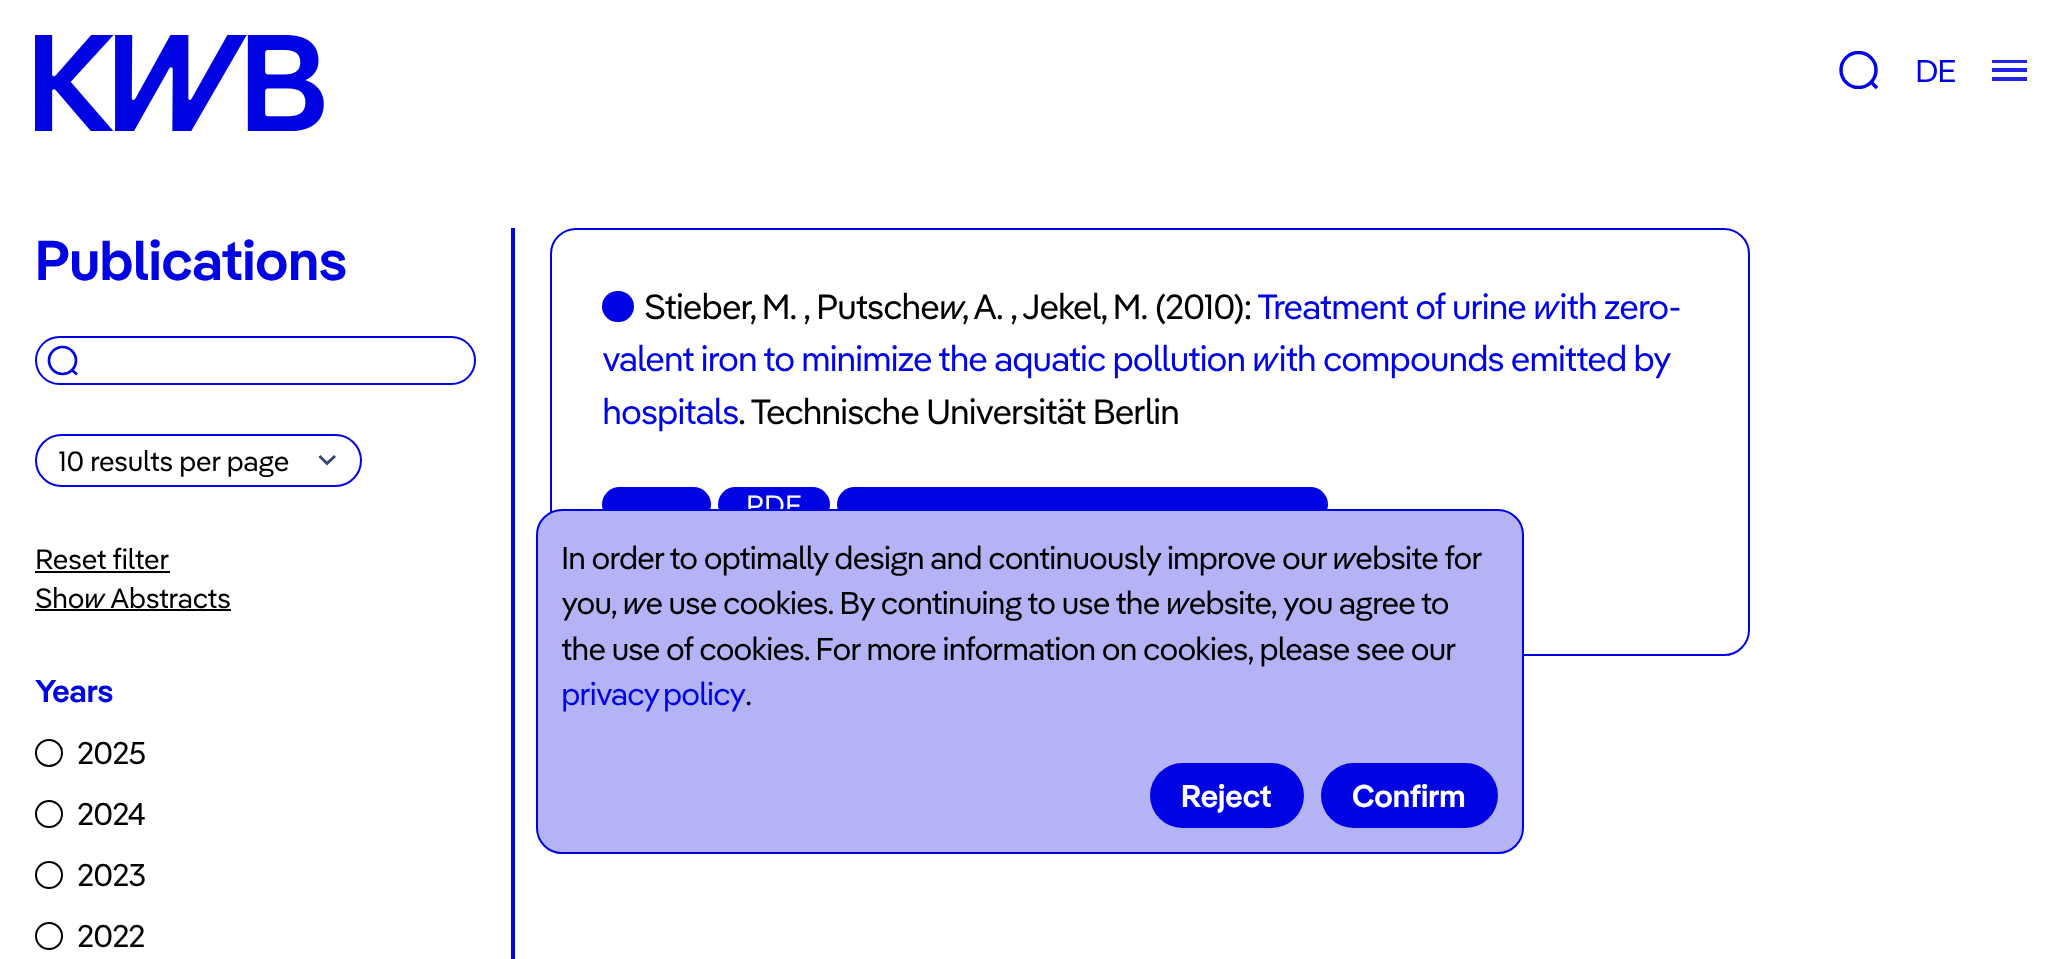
<svg xmlns="http://www.w3.org/2000/svg" width="2058" height="959">
<defs>
<clipPath id="clip1"><rect x="1839" y="51" width="41" height="38"/></clipPath>
</defs>
<rect width="100%" height="100%" fill="#fff"/>
<image x="35" y="35" width="289" height="96" href="media/1.png"/>
<g clip-path="url(#clip1)">
<circle cx="1858.5" cy="70" r="17.5" fill="none" stroke="#0003e2" stroke-width="3.5"/>
</g>
<path d="M1871 82l6 6" fill="none" stroke="#0003e2" stroke-width="3.5"/>
<text x="1915" y="82" style="font-family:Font;font-size:31.5px;letter-spacing:-1.4px;fill:#0003e2">DE</text>
<rect x="1992" y="60" width="35" height="3" fill="#2023e6"/>
<rect x="1992" y="68" width="35" height="4" fill="#2023e6"/>
<rect x="1992" y="77" width="35" height="4" fill="#2023e6"/>
<rect x="511" y="228" width="4" height="731" fill="#0003e2"/>
<text x="35" y="280" style="font-family:Font;font-size:56px;font-weight:600;fill:#0003e2">Publications</text>
<rect x="36" y="337" width="439" height="47" rx="23.5" fill="none" stroke="#0003e2" stroke-width="2"/>
<circle cx="62.5" cy="360.5" r="13.5" fill="none" stroke="#0003e2" stroke-width="2.7"/>
<path d="M72 370l5 4.5" fill="none" stroke="#0003e2" stroke-width="2.7"/>
<path d="M318.5 457l2-2l6.5 6.5l7-6.5l2 2l-9 8.5z" fill="#3a4570"/>
<rect x="36" y="435" width="325" height="51" rx="25.5" fill="none" stroke="#0003e2" stroke-width="2"/>
<text x="58" y="471" style="font-family:Font;font-size:28px;letter-spacing:-0.6px;fill:#000">10 results per page</text>
<text x="35" y="569" style="font-family:Font;font-size:28px;letter-spacing:-0.6px;fill:#000">Reset filter</text>
<rect x="35" y="571" width="135" height="2" fill="#000"/>
<text x="35" y="608" style="font-family:Font;font-size:28px;letter-spacing:-0.6px;fill:#000">Show Abstracts</text>
<rect x="35" y="609" width="196" height="2" fill="#000"/>
<text x="35" y="702" style="font-family:Font;font-size:31.5px;font-weight:600;fill:#0003e2">Years</text>
<circle cx="49" cy="753" r="13" fill="none" stroke="#000" stroke-width="2"/>
<text x="77" y="764" style="font-family:Font;font-size:31.5px;letter-spacing:-1.25px;fill:#000">2025</text>
<circle cx="49" cy="814" r="13" fill="none" stroke="#000" stroke-width="2"/>
<text x="77" y="825" style="font-family:Font;font-size:31.5px;letter-spacing:-1.25px;fill:#000">2024</text>
<circle cx="49" cy="875" r="13" fill="none" stroke="#000" stroke-width="2"/>
<text x="77" y="886" style="font-family:Font;font-size:31.5px;letter-spacing:-1.25px;fill:#000">2023</text>
<circle cx="49" cy="936" r="13" fill="none" stroke="#000" stroke-width="2"/>
<text x="77" y="947" style="font-family:Font;font-size:31.5px;letter-spacing:-1.25px;fill:#000">2022</text>
<rect x="551" y="229" width="1198" height="426" rx="25" fill="none" stroke="#0003e2" stroke-width="2"/>
<rect x="602" y="291" width="32" height="31" rx="15.5" fill="#0003e2"/>
<text x="644" y="319" word-spacing="-1" style="font-family:Font;font-size:35px;letter-spacing:-1.4px;fill:#000">Stieber, M.</text>
<text x="803" y="319" style="font-family:Font;font-size:35px;letter-spacing:-1.4px;fill:#000">,</text>
<text x="816" y="319" word-spacing="-1" style="font-family:Font;font-size:35px;letter-spacing:-1.4px;fill:#000">Putschew, A.</text>
<text x="1010" y="319" style="font-family:Font;font-size:35px;letter-spacing:-1.4px;fill:#000">,</text>
<text x="1022" y="319" word-spacing="-1" style="font-family:Font;font-size:35px;letter-spacing:-1.4px;fill:#000">Jekel, M.</text>
<text x="1155" y="319" style="font-family:Font;font-size:35px;letter-spacing:-1.4px;fill:#000">(2010):</text>
<text x="1257" y="319" style="font-family:Font;font-size:35px;letter-spacing:-1.4px;fill:#0003e2">Treatment of urine with zero-</text>
<text x="602" y="371" style="font-family:Font;font-size:35px;letter-spacing:-1.4px;fill:#0003e2">valent iron to minimize the aquatic pollution with compounds emitted by</text>
<text x="602" y="424" style="font-family:Font;font-size:35px;letter-spacing:-1.4px;fill:#0003e2">hospitals</text>
<text x="738" y="424" style="font-family:Font;font-size:35px;letter-spacing:-1.4px;fill:#000">. Technische Universität Berlin</text>
<rect x="602" y="487" width="109" height="35" rx="17.5" fill="#0003e2"/>
<rect x="718" y="487" width="112" height="35" rx="17.5" fill="#0003e2"/>
<text x="746" y="515" style="font-family:Font;font-size:28px;fill:#fff">PDF</text>
<rect x="837" y="487" width="491" height="35" rx="17.5" fill="#0003e2"/>
<rect x="537" y="510" width="986" height="343" rx="25" fill="#b3b3f6" stroke="#0003e2" stroke-width="2"/>
<text x="561" y="569" style="font-family:Font;font-size:31.5px;letter-spacing:-1.25px;fill:#000">In order to optimally design and continuously improve our website for</text>
<text x="561" y="614" style="font-family:Font;font-size:31.5px;letter-spacing:-1.25px;fill:#000">you, we use cookies. By continuing to use the website, you agree to</text>
<text x="561" y="660" style="font-family:Font;font-size:31.5px;letter-spacing:-1.25px;fill:#000">the use of cookies. For more information on cookies, please see our</text>
<text x="561" y="705" word-spacing="-2" style="font-family:Font;font-size:31.5px;letter-spacing:-1.25px;fill:#0003e2">privacy policy</text>
<text x="745" y="705" style="font-family:Font;font-size:31.5px;letter-spacing:-1.25px;fill:#000">.</text>
<rect x="1150" y="763" width="154" height="65" rx="32.5" fill="#0003e2"/>
<text x="1181" y="807" style="font-family:Font;font-size:31.5px;font-weight:600;fill:#fff">Reject</text>
<rect x="1321" y="763" width="177" height="65" rx="32.5" fill="#0003e2"/>
<text x="1352" y="807" style="font-family:Font;font-size:31.5px;font-weight:600;fill:#fff">Confirm</text>
</svg>
